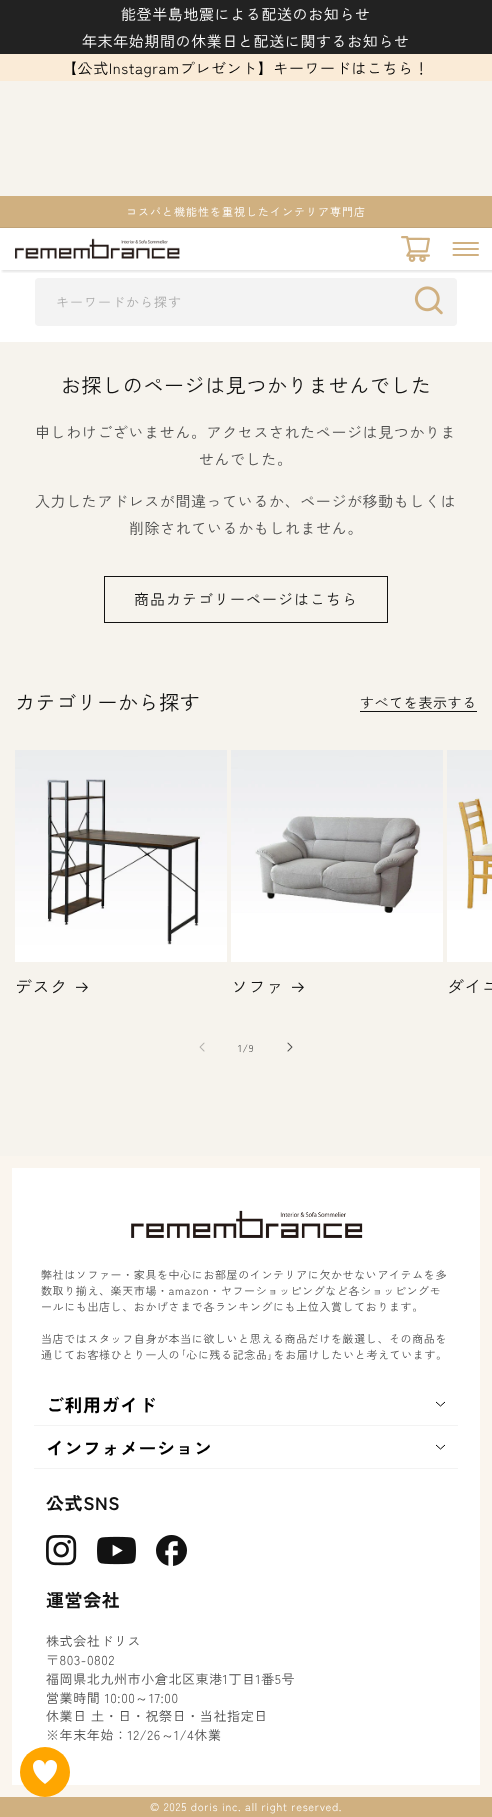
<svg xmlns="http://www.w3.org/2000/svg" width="492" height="1817">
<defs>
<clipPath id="clip1"><rect x="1" y="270" width="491" height="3"/></clipPath>
</defs>
<rect width="100%" height="100%" fill="#f6f3ed"/>
<rect width="492" height="54" fill="#222"/>
<text x="121" y="20" style="font-family:Zen Kaku Gothic New;font-size:15px;letter-spacing:0.6px;fill:#fff">能登半島地震による配送のお知らせ</text>
<text x="82" y="47" style="font-family:Zen Kaku Gothic New;font-size:15px;letter-spacing:0.6px;fill:#fff">年末年始期間の休業日と配送に関するお知らせ</text>
<rect y="54" width="492" height="27" fill="#faebd7"/>
<text x="62" y="74" style="font-family:Zen Kaku Gothic New;font-size:15px;letter-spacing:0.6px;fill:#000">【公式Instagramプレゼント】キーワードはこちら！</text>
<rect y="196" width="492" height="31" fill="#d0b080"/>
<rect y="227" width="492" height="1" fill="#c1a377"/>
<text x="126" y="216" style="font-family:Zen Kaku Gothic New;font-size:11px;letter-spacing:1px;fill:#fff">コスパと機能性を重視したインテリア専門店</text>
<rect y="228" width="492" height="114" fill="#fff"/>
<g clip-path="url(#clip1)">
<rect x="2" y="230" width="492" height="42" fill="#0000001a" filter="blur(1px)"/>
</g>
<image x="15" y="238" width="165" height="21" href="media/1.png"/>
<image x="401" y="236" width="29" height="26" href="media/2.png"/>
<image x="452" y="242" width="27" height="14" href="media/3.png"/>
<rect x="35" y="278" width="422" height="48" rx="4" fill="#f3f3f3"/>
<text x="56" y="307" style="font-family:Zen Kaku Gothic New;font-size:13px;letter-spacing:1px;fill:#a9a9a9">キーワードから探す</text>
<image x="414" y="286" width="29" height="29" href="media/4.png"/>
<text x="61" y="393" style="font-family:Zen Kaku Gothic New;font-size:20px;letter-spacing:0.6px;fill:#121212">お探しのページは見つかりませんでした</text>
<text x="35" y="438" style="font-family:Zen Kaku Gothic New;font-size:15px;letter-spacing:0.6px;fill:#4d4d4d">申しわけございません。アクセスされたページは見つかりま</text>
<text x="199" y="465" style="font-family:Zen Kaku Gothic New;font-size:15px;letter-spacing:0.6px;fill:#4d4d4d">せんでした。</text>
<text x="35" y="507" style="font-family:Zen Kaku Gothic New;font-size:15px;letter-spacing:0.6px;fill:#4d4d4d">入力したアドレスが間違っているか、ページが移動もしくは</text>
<text x="129" y="534" style="font-family:Zen Kaku Gothic New;font-size:15px;letter-spacing:0.6px;fill:#4d4d4d">削除されているかもしれません。</text>
<rect x="104.5" y="576.5" width="283" height="46" fill="none" stroke="#121212"/>
<text x="134" y="605" style="font-family:Zen Kaku Gothic New;font-size:15px;letter-spacing:1px;fill:#121212">商品カテゴリーページはこちら</text>
<text x="15" y="710" style="font-family:Zen Kaku Gothic New;font-size:20px;letter-spacing:0.6px;fill:#121212">カテゴリーから探す</text>
<text x="360" y="708" style="font-family:Zen Kaku Gothic New;font-size:14px;letter-spacing:0.6px;fill:#121212">すべてを表示する</text>
<rect x="360" y="711" width="117" height="1" fill="#121212"/>
<rect x="15" y="945" width="212" height="17" fill="#fff"/>
<image x="15" y="750" width="212" height="195" href="media/5.png"/>
<text x="15" y="993" style="font-family:Zen Kaku Gothic New;font-size:17px;letter-spacing:0.6px;fill:#121212">デスク</text>
<image x="76" y="982" width="12" height="11" href="media/6.png"/>
<rect x="231" y="913" width="212" height="49" fill="#fff"/>
<image x="231" y="750" width="212" height="163" href="media/7.png"/>
<text x="231" y="993" style="font-family:Zen Kaku Gothic New;font-size:17px;letter-spacing:0.6px;fill:#121212">ソファ</text>
<image x="292" y="982" width="12" height="11" href="media/6.png"/>
<rect x="447" y="910" width="45" height="52" fill="#fff"/>
<image x="447" y="750" width="45" height="160" href="media/8.png"/>
<text x="447" y="993" style="font-family:Zen Kaku Gothic New;font-size:17px;letter-spacing:0.6px;fill:#121212">ダイニ</text>
<image x="199" y="1042" width="6" height="10" href="media/9.png"/>
<text x="238" y="1052" style="font-family:Zen Kaku Gothic New;font-size:10px;letter-spacing:0.7px;fill:#4d4d4d">1/9</text>
<image x="287" y="1042" width="6" height="10" href="media/10.png"/>
<rect y="1156" width="492" height="641" fill="#faf5ee"/>
<rect x="12" y="1168" width="468" height="617" fill="#fff"/>
<image x="131" y="1210" width="232" height="28" href="media/11.png"/>
<text x="41" y="1279" style="font-family:Zen Kaku Gothic New;font-size:11px;letter-spacing:0.6px;fill:#4d4d4d">弊社はソファー・家具を中心にお部屋のインテリアに欠かせないアイテムを多</text>
<text x="41" y="1295" style="font-family:Zen Kaku Gothic New;font-size:11px;letter-spacing:0.6px;fill:#4d4d4d">数取り揃え、楽天市場・amazon・ヤフーショッピングなど各ショッピングモ</text>
<text x="41" y="1311" style="font-family:Zen Kaku Gothic New;font-size:11px;letter-spacing:0.6px;fill:#4d4d4d">ールにも出店し、おかげさまで各ランキングにも上位入賞しております。</text>
<text x="41" y="1343" style="font-family:Zen Kaku Gothic New;font-size:11px;letter-spacing:0.6px;fill:#4d4d4d">当店ではスタッフ自身が本当に欲しいと思える商品だけを厳選し、その商品を</text>
<text x="41" y="1359" style="font-family:Zen Kaku Gothic New;font-size:11px;letter-spacing:0.6px;fill:#4d4d4d">通じてお客様ひとり一人の｢心に残る記念品｣をお届けしたいと考えています。</text>
<rect x="34" y="1425" width="424" height="1" fill="#f3f3f3"/>
<text x="46" y="1412" style="font-family:Zen Kaku Gothic New;font-size:18px;font-weight:bold;letter-spacing:0.5px;fill:#000">ご利用ガイド</text>
<path d="M445 1402l-4.5 4l-4.5-4m9 43l-4.5 4l-4.5-4" fill="none" stroke="#000"/>
<rect x="34" y="1468" width="424" height="1" fill="#f3f3f3"/>
<text x="46" y="1455" style="font-family:Zen Kaku Gothic New;font-size:18px;font-weight:bold;letter-spacing:0.5px;fill:#000">インフォメーション</text>
<text x="46" y="1510" style="font-family:Zen Kaku Gothic New;font-size:18px;font-weight:bold;letter-spacing:0.6px;fill:#121212">公式SNS</text>
<image x="46" y="1535" width="31" height="31" href="media/12.png"/>
<image x="97" y="1536" width="39" height="29" href="media/13.png"/>
<image x="156" y="1535" width="31" height="31" href="media/14.png"/>
<text x="46" y="1607" style="font-family:Zen Kaku Gothic New;font-size:18px;font-weight:bold;letter-spacing:0.6px;fill:#121212">運営会社</text>
<text x="46" y="1646" style="font-family:Zen Kaku Gothic New;font-size:13px;letter-spacing:0.6px;fill:#4d4d4d">株式会社ドリス</text>
<text x="46" y="1665" style="font-family:Zen Kaku Gothic New;font-size:13px;letter-spacing:0.6px;fill:#4d4d4d">〒803-0802</text>
<text x="46" y="1684" style="font-family:Zen Kaku Gothic New;font-size:13px;letter-spacing:0.6px;fill:#4d4d4d">福岡県北九州市小倉北区東港1丁目1番5号</text>
<text x="46" y="1703" style="font-family:Zen Kaku Gothic New;font-size:13px;letter-spacing:0.6px;fill:#4d4d4d">営業時間 10:00</text>
<text x="135" y="1703" style="font-family:WenQuanYi Zen Hei;font-size:13px;font-weight:500;letter-spacing:0.6px;fill:#4d4d4d">～</text>
<text x="149" y="1703" style="font-family:Zen Kaku Gothic New;font-size:13px;letter-spacing:0.6px;fill:#4d4d4d">17:00</text>
<text x="46" y="1721" style="font-family:Zen Kaku Gothic New;font-size:13px;letter-spacing:0.6px;fill:#4d4d4d">休業日 土・日・祝祭日・当社指定日</text>
<text x="46" y="1740" style="font-family:Zen Kaku Gothic New;font-size:13px;letter-spacing:0.6px;fill:#4d4d4d">※年末年始：12/26</text>
<text x="161" y="1740" style="font-family:WenQuanYi Zen Hei;font-size:13px;font-weight:500;letter-spacing:0.6px;fill:#4d4d4d">～</text>
<text x="174" y="1740" style="font-family:Zen Kaku Gothic New;font-size:13px;letter-spacing:0.6px;fill:#4d4d4d">1/4休業</text>
<rect y="1797" width="492" height="20" fill="#d0b080"/>
<text x="150" y="1811" style="font-family:Zen Kaku Gothic New;font-size:11px;letter-spacing:0.7px;fill:#fff">© 2025 doris inc. all right reserved.</text>
<circle cx="45" cy="1772" r="25" fill="#ffa600"/>
<image x="33" y="1760" width="24" height="24" href="media/15.png"/>
</svg>
